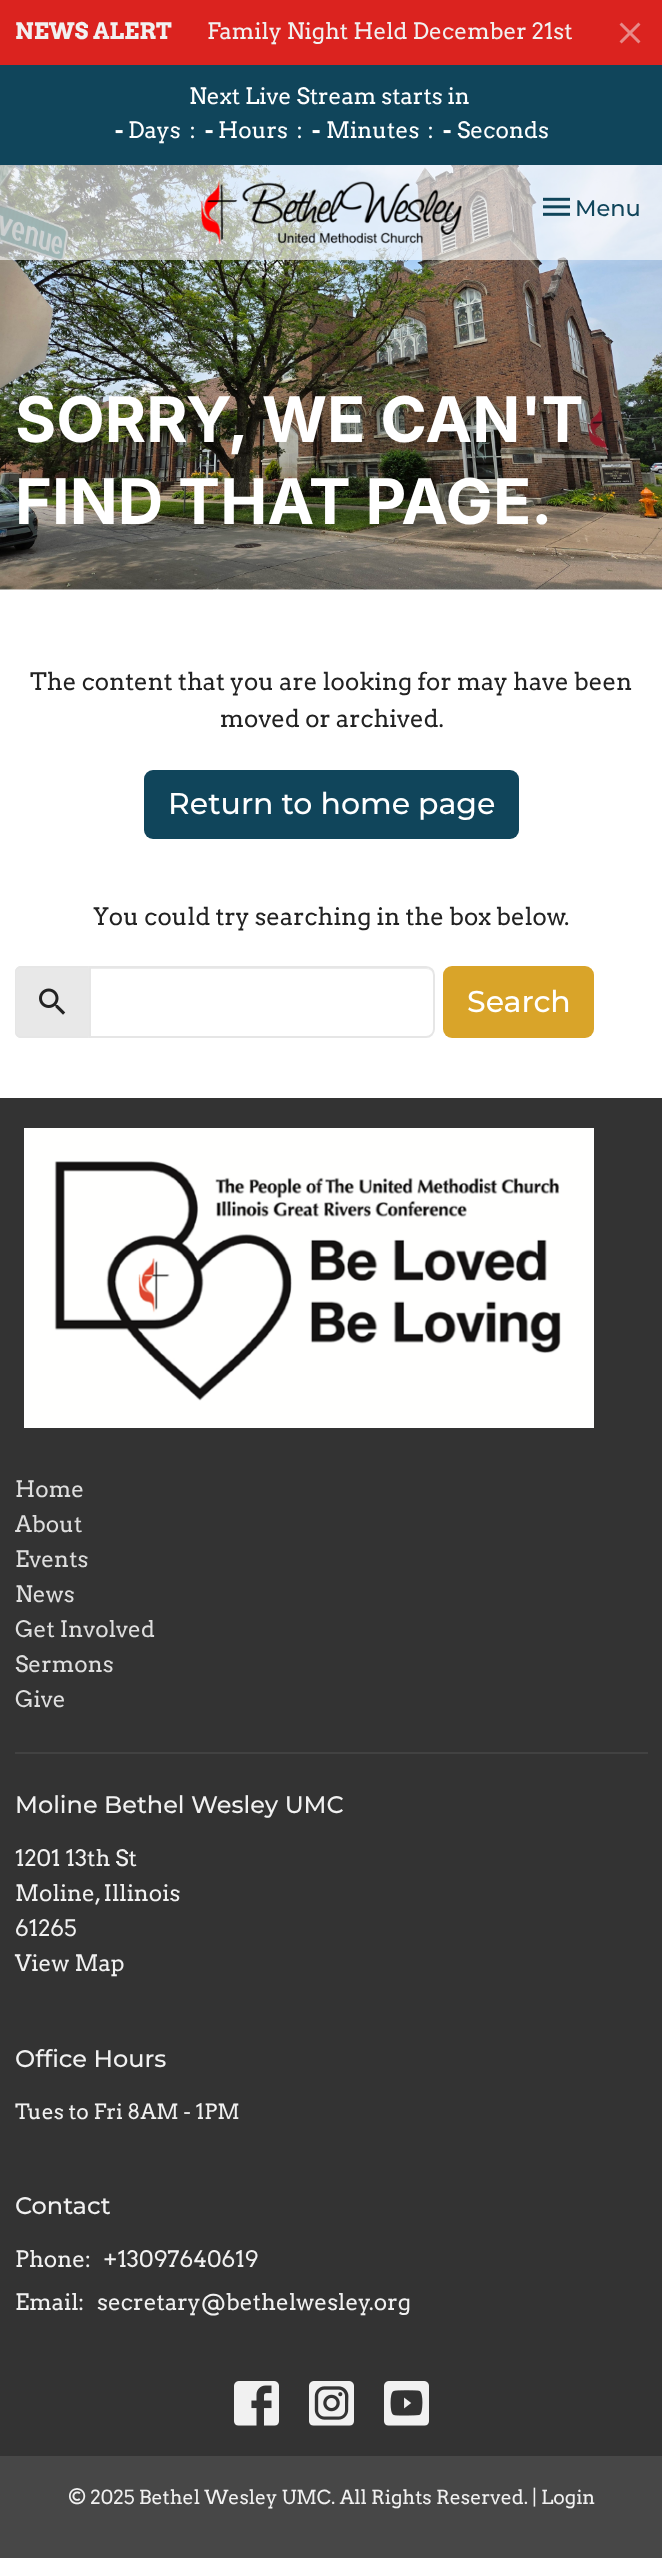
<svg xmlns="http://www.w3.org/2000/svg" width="662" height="2558">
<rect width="100%" height="100%" fill="#fff"/>
<rect width="662" height="65" fill="#db231f"/>
<text x="15" y="39" style="font-family:Arvo;font-size:22.5px;font-weight:bold;fill:#f1f1f1">NEWS ALERT</text>
<text x="207" y="39" style="font-family:Arvo;font-size:22.5px;fill:#f1f1f1">Family Night Held December 21st</text>
<image x="619" y="22" width="22" height="22" href="media/1.png"/>
<rect y="65" width="662" height="100" fill="#10455b"/>
<text x="189" y="104" style="font-family:Arvo;font-size:22.5px;fill:#fff">Next Live Stream starts in</text>
<text x="115" y="138" style="font-family:Arvo;font-size:22.5px;font-weight:bold;fill:#fff">-</text>
<text x="128" y="138" style="font-family:Arvo;font-size:22.5px;fill:#fff">Days</text>
<text x="190" y="138" style="font-family:Arvo;font-size:22.5px;fill:#fff">:</text>
<text x="205" y="138" style="font-family:Arvo;font-size:22.5px;font-weight:bold;fill:#fff">-</text>
<text x="218" y="138" style="font-family:Arvo;font-size:22.5px;fill:#fff">Hours</text>
<text x="297" y="138" style="font-family:Arvo;font-size:22.5px;fill:#fff">:</text>
<text x="312" y="138" style="font-family:Arvo;font-size:22.5px;font-weight:bold;fill:#fff">-</text>
<text x="326" y="138" style="font-family:Arvo;font-size:22.5px;fill:#fff">Minutes</text>
<text x="428" y="138" style="font-family:Arvo;font-size:22.5px;fill:#fff">:</text>
<text x="443" y="138" style="font-family:Arvo;font-size:22.5px;font-weight:bold;fill:#fff">-</text>
<text x="457" y="138" style="font-family:Arvo;font-size:22.5px;fill:#fff">Seconds</text>
<image x="0" y="165" width="662" height="425" href="media/4.png"/>
<rect y="165" width="662" height="95" fill="#ffffff9e"/>
<image x="201" y="180" width="261" height="65" href="media/2.png"/>
<image x="543" y="197" width="27" height="19" href="media/3.png"/>
<text x="575" y="216" style="font-family:Montserrat;font-size:22.5px;font-weight:500;fill:#10455b">Menu</text>
<text x="15" y="442" style="font-family:Inter;font-size:63px;font-weight:bold;fill:#fff">SORRY, WE CAN'T</text>
<text x="15" y="524" style="font-family:Inter;font-size:63px;font-weight:bold;fill:#fff">FIND THAT PAGE.</text>
<text x="30" y="690" style="font-family:Arvo;font-size:24px;fill:#222">The content that you are looking for may have been</text>
<text x="220" y="727" style="font-family:Arvo;font-size:24px;fill:#222">moved or archived.</text>
<rect x="144" y="770" width="375" height="69" rx="9" fill="#10455b"/>
<text x="168" y="814" style="font-family:Montserrat;font-size:30px;font-weight:500;fill:#fff">Return to home page</text>
<text x="93" y="925" style="font-family:Arvo;font-size:24px;fill:#222">You could try searching in the box below.</text>
<path d="M21 966h68v72h-68c-3.5 0-6-2.5-6-6v-60c0-3.5 2.5-6 6-6z" fill="#e8e8e8"/>
<path d="M21 966h67v72h-67c-3 0-6-3-6-6v-60c0-3 3-6 6-6zm0 2h67v68h-67c-2 0-5-2-5-4v-60c0-2 3-4 5-4z" fill="#e6e6e6" fill-rule="evenodd"/>
<image x="39" y="988" width="27" height="27" href="media/5.png"/>
<path d="M90 969h336c4 0 8 3 8 7c0-4-4-8-8-8h-336z" fill="#ececec"/>
<path d="M90 967h336c4.5 0 8 3.5 8 8v54c0 4.5-3.5 8-8 8h-336z" fill="none" stroke="#e6e6e6" stroke-width="2"/>
<rect x="443" y="966" width="151" height="72" rx="9" fill="#d9a429"/>
<text x="467" y="1012" style="font-family:Montserrat;font-size:30px;font-weight:500;fill:#fff">Search</text>
<rect y="1098" width="662" height="1358" fill="#333"/>
<image x="24" y="1128" width="570" height="300" href="media/6.png"/>
<text x="15" y="1497" style="font-family:Arvo;font-size:22.5px;fill:#dedede">Home</text>
<text x="15" y="1532" style="font-family:Arvo;font-size:22.5px;fill:#dedede">About</text>
<text x="15" y="1567" style="font-family:Arvo;font-size:22.5px;fill:#dedede">Events</text>
<text x="15" y="1602" style="font-family:Arvo;font-size:22.5px;fill:#dedede">News</text>
<text x="15" y="1637" style="font-family:Arvo;font-size:22.5px;fill:#dedede">Get Involved</text>
<text x="15" y="1672" style="font-family:Arvo;font-size:22.5px;fill:#dedede">Sermons</text>
<text x="15" y="1707" style="font-family:Arvo;font-size:22.5px;fill:#dedede">Give</text>
<rect x="15" y="1752" width="633" height="2" fill="#424242"/>
<text x="15" y="1813" style="font-family:Montserrat;font-size:24px;font-weight:500;fill:#f1f1f1">Moline Bethel Wesley UMC</text>
<text x="15" y="1866" style="font-family:Arvo;font-size:22.5px;fill:#f1f1f1">1201 13th St</text>
<text x="15" y="1901" style="font-family:Arvo;font-size:22.5px;fill:#f1f1f1">Moline, Illinois</text>
<text x="15" y="1936" style="font-family:Arvo;font-size:22.5px;fill:#f1f1f1">61265</text>
<text x="15" y="1971" style="font-family:Arvo;font-size:22.5px;fill:#f1f1f1">View Map</text>
<text x="15" y="2067" style="font-family:Montserrat;font-size:24px;font-weight:500;fill:#f1f1f1">Office Hours</text>
<text x="15" y="2119" style="font-family:Arvo;font-size:21px;fill:#f1f1f1">Tues to Fri 8AM - 1PM</text>
<text x="15" y="2214" style="font-family:Montserrat;font-size:24px;font-weight:500;fill:#f1f1f1">Contact</text>
<text x="15" y="2267" style="font-family:Arvo;font-size:22.5px;fill:#f1f1f1">Phone:</text>
<text x="103" y="2267" style="font-family:Arvo;font-size:22.5px;fill:#f1f1f1">+13097640619</text>
<text x="15" y="2310" style="font-family:Arvo;font-size:22.5px;fill:#f1f1f1">Email:</text>
<text x="97" y="2310" style="font-family:Arvo;font-size:22.5px;fill:#f1f1f1">secretary@bethelwesley.org</text>
<image x="234" y="2381" width="45" height="45" href="media/7.png"/>
<image x="309" y="2381" width="45" height="45" href="media/8.png"/>
<image x="384" y="2381" width="45" height="45" href="media/9.png"/>
<rect y="2456" width="662" height="102" fill="#474747"/>
<text x="68" y="2504" style="font-family:Arvo;font-size:19.35px;fill:#f1f1f1">© 2025 Bethel Wesley UMC. All Rights Reserved. |</text>
<text x="541" y="2504" style="font-family:Arvo;font-size:19.35px;fill:#f1f1f1">Login</text>
</svg>
